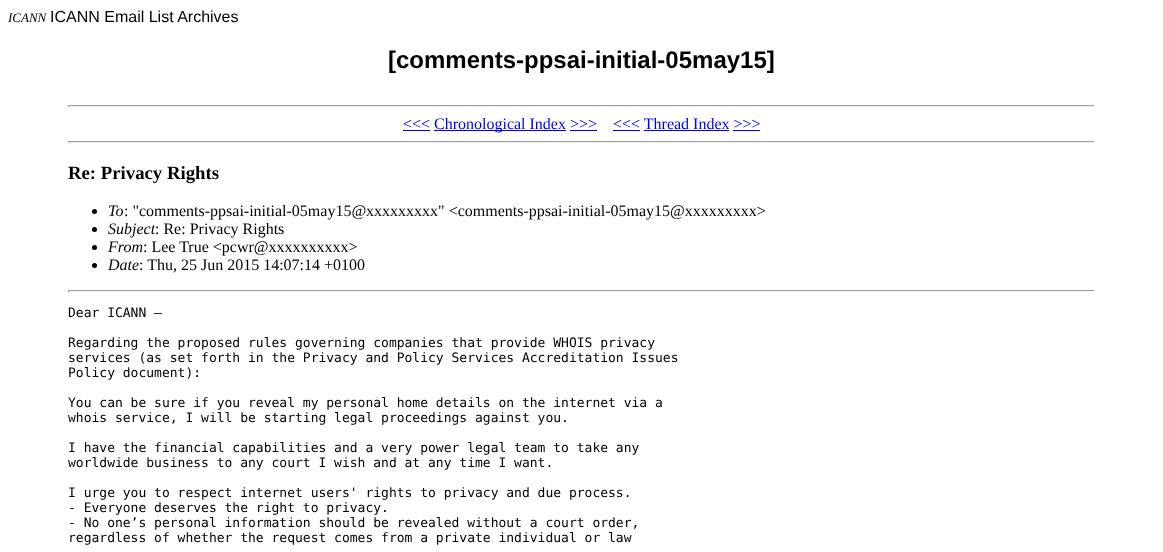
<svg xmlns="http://www.w3.org/2000/svg" width="1163" height="552">
<rect width="100%" height="100%" fill="#fff"/>
<text x="8" y="22" style="font-family:Liberation Serif;font-size:13px;font-style:italic;fill:#000">ICANN</text>
<text x="50" y="22" style="font-family:Liberation Sans;font-size:16px;fill:#000">ICANN Email List Archives</text>
<text x="388" y="68" style="font-family:Liberation Sans;font-size:24px;font-weight:bold;fill:#000">[comments-ppsai-initial-05may15]</text>
<rect x="68" y="105" width="1027" height="1" fill="#9f9f9f"/>
<rect x="1094" y="105" width="1" height="2" fill="#eee"/>
<rect x="68" y="106" width="1027" height="1" fill="#eee"/>
<rect x="68" y="105" width="1" height="2" fill="#9f9f9f"/>
<text x="403" y="129" style="font-family:Liberation Serif;font-size:16px;fill:#00e">&lt;&lt;&lt;</text>
<rect x="403" y="130" width="27" height="1" fill="#00e"/>
<rect x="434" y="130" width="132" height="1" fill="#00e"/>
<text x="434" y="129" style="font-family:Liberation Serif;font-size:16px;fill:#00e">Chronological Index &gt;&gt;&gt;</text>
<text x="613" y="129" style="font-family:Liberation Serif;font-size:16px;fill:#00e">&lt;&lt;&lt; Thread Index &gt;&gt;&gt;</text>
<rect x="613" y="130" width="27" height="1" fill="#00e"/>
<rect x="570" y="130" width="27" height="1" fill="#00e"/>
<rect x="644" y="130" width="85" height="1" fill="#00e"/>
<rect x="733" y="130" width="27" height="1" fill="#00e"/>
<rect x="68" y="141" width="1027" height="1" fill="#9f9f9f"/>
<rect x="1094" y="141" width="1" height="2" fill="#eee"/>
<rect x="68" y="142" width="1027" height="1" fill="#eee"/>
<rect x="68" y="141" width="1" height="2" fill="#9f9f9f"/>
<text x="68" y="179" style="font-family:Liberation Serif;font-size:18.75px;font-weight:bold;fill:#000">Re: Privacy Rights</text>
<circle cx="94.5" cy="211.5" r="2.5" fill="#000"/>
<text x="108" y="216" style="font-family:Liberation Serif;font-size:16px;font-style:italic;fill:#000">To</text>
<text x="124" y="216" style="font-family:Liberation Serif;font-size:16px;fill:#000">: "comments-ppsai-initial-05may15@xxxxxxxxx" &lt;comments-ppsai-initial-05may15@xxxxxxxxx&gt;</text>
<circle cx="94.5" cy="229.5" r="2.5" fill="#000"/>
<text x="108" y="234" style="font-family:Liberation Serif;font-size:16px;font-style:italic;fill:#000">Subject</text>
<text x="155" y="234" style="font-family:Liberation Serif;font-size:16px;fill:#000">: Re: Privacy Rights</text>
<circle cx="94.5" cy="247.5" r="2.5" fill="#000"/>
<text x="108" y="252" style="font-family:Liberation Serif;font-size:16px;font-style:italic;fill:#000">From</text>
<text x="143" y="252" style="font-family:Liberation Serif;font-size:16px;fill:#000">: Lee True &lt;pcwr@xxxxxxxxxx&gt;</text>
<circle cx="94.5" cy="265.5" r="2.5" fill="#000"/>
<text x="108" y="270" style="font-family:Liberation Serif;font-size:16px;font-style:italic;fill:#000">Date</text>
<text x="139" y="270" style="font-family:Liberation Serif;font-size:16px;fill:#000">: Thu, 25 Jun 2015 14:07:14 +0100</text>
<rect x="68" y="290" width="1027" height="1" fill="#9f9f9f"/>
<rect x="1094" y="290" width="1" height="2" fill="#eee"/>
<rect x="68" y="291" width="1027" height="1" fill="#eee"/>
<rect x="68" y="290" width="1" height="2" fill="#9f9f9f"/>
<text x="68" y="317" style="font-family:DejaVu Sans Mono;font-size:13px;fill:#000">Dear ICANN –</text>
<text x="68" y="347" style="font-family:DejaVu Sans Mono;font-size:13px;fill:#000">Regarding the proposed rules governing companies that provide WHOIS privacy</text>
<text x="68" y="362" style="font-family:DejaVu Sans Mono;font-size:13px;fill:#000">services (as set forth in the Privacy and Policy Services Accreditation Issues</text>
<text x="68" y="377" style="font-family:DejaVu Sans Mono;font-size:13px;fill:#000">Policy document):</text>
<text x="68" y="407" style="font-family:DejaVu Sans Mono;font-size:13px;fill:#000">You can be sure if you reveal my personal home details on the internet via a</text>
<text x="68" y="422" style="font-family:DejaVu Sans Mono;font-size:13px;fill:#000">whois service, I will be starting legal proceedings against you.</text>
<text x="68" y="452" style="font-family:DejaVu Sans Mono;font-size:13px;fill:#000">I have the financial capabilities and a very power legal team to take any</text>
<text x="68" y="467" style="font-family:DejaVu Sans Mono;font-size:13px;fill:#000">worldwide business to any court I wish and at any time I want.</text>
<text x="68" y="497" style="font-family:DejaVu Sans Mono;font-size:13px;fill:#000">I urge you to respect internet users' rights to privacy and due process.</text>
<text x="68" y="512" style="font-family:DejaVu Sans Mono;font-size:13px;fill:#000">- Everyone deserves the right to privacy.</text>
<text x="68" y="527" style="font-family:DejaVu Sans Mono;font-size:13px;fill:#000">- No one’s personal information should be revealed without a court order,</text>
<text x="68" y="542" style="font-family:DejaVu Sans Mono;font-size:13px;fill:#000">regardless of whether the request comes from a private individual or law</text>
</svg>
